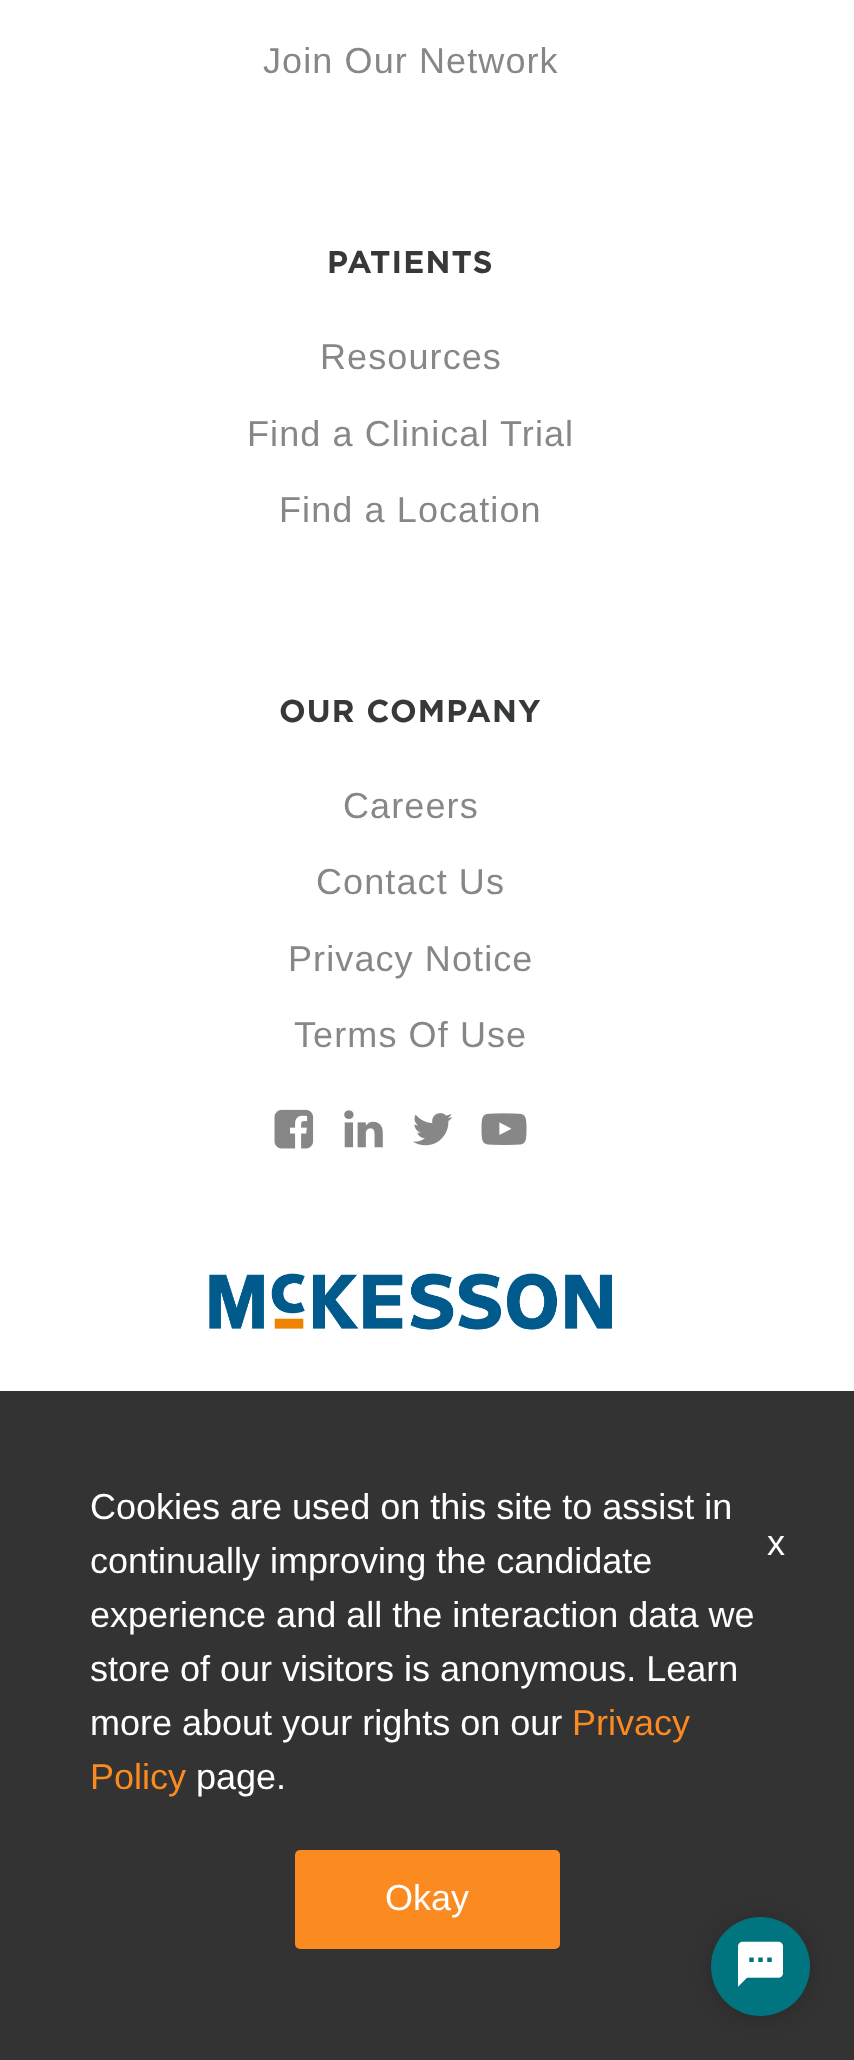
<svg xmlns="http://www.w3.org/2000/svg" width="854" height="2060">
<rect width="100%" height="100%" fill="#fff"/>
<text x="263" y="73" style="font-family:Liberation Sans;font-size:36px;letter-spacing:1.1px;fill:#868786">Join Our Network</text>
<text x="327" y="273" style="font-family:Gotham;font-size:31.5px;font-weight:bold;letter-spacing:1.1px;fill:#373938">PATIENTS</text>
<text x="320" y="369" style="font-family:Liberation Sans;font-size:36px;letter-spacing:1.1px;fill:#868786">Resources</text>
<text x="247" y="446" style="font-family:Liberation Sans;font-size:36px;letter-spacing:1.1px;fill:#868786">Find a Clinical Trial</text>
<text x="279" y="522" style="font-family:Liberation Sans;font-size:36px;letter-spacing:1.1px;fill:#868786">Find a Location</text>
<text x="279" y="722" style="font-family:Gotham;font-size:31.5px;font-weight:bold;letter-spacing:1.1px;fill:#373938">OUR COMPANY</text>
<text x="343" y="818" style="font-family:Liberation Sans;font-size:36px;letter-spacing:1.1px;fill:#868786">Careers</text>
<text x="316" y="894" style="font-family:Liberation Sans;font-size:36px;letter-spacing:1.1px;fill:#868786">Contact Us</text>
<text x="288" y="971" style="font-family:Liberation Sans;font-size:36px;letter-spacing:1.1px;fill:#868786">Privacy Notice</text>
<text x="294" y="1047" style="font-family:Liberation Sans;font-size:36px;letter-spacing:1.1px;fill:#868786">Terms Of Use</text>
<image x="274" y="1109" width="40" height="40" href="media/1.png"/>
<image x="344" y="1110" width="39" height="38" href="media/2.png"/>
<image x="413" y="1113" width="40" height="33" href="media/3.png"/>
<image x="481" y="1113" width="46" height="32" href="media/4.png"/>
<image x="209" y="1273" width="403" height="57" href="media/5.png"/>
<rect y="1391" width="854" height="669" fill="#000000cc"/>
<text x="90" y="1519" style="font-family:Liberation Sans;font-size:36px;fill:#fff">Cookies are used on this site to assist in</text>
<text x="90" y="1573" style="font-family:Liberation Sans;font-size:36px;fill:#fff">continually improving the candidate</text>
<text x="90" y="1627" style="font-family:Liberation Sans;font-size:36px;fill:#fff">experience and all the interaction data we</text>
<text x="90" y="1681" style="font-family:Liberation Sans;font-size:36px;fill:#fff">store of our visitors is anonymous. Learn</text>
<text x="90" y="1735" style="font-family:Liberation Sans;font-size:36px;fill:#fff">more about your rights on our</text>
<text x="572" y="1735" style="font-family:Liberation Sans;font-size:36px;fill:#fb8b21">Privacy</text>
<text x="90" y="1789" style="font-family:Liberation Sans;font-size:36px;fill:#fb8b21">Policy</text>
<text x="196" y="1789" style="font-family:Liberation Sans;font-size:36px;fill:#fff">page.</text>
<rect x="295" y="1850" width="265" height="99" rx="5" fill="#fb8b21"/>
<text x="385" y="1910" style="font-family:Liberation Sans;font-size:36px;fill:#fff">Okay</text>
<text x="767" y="1555" style="font-family:Liberation Sans;font-size:36px;fill:#fff">x</text>
<rect x="711" y="1919" width="99" height="99" rx="49.5" fill="#00000033" filter="blur(11px)"/>
<circle cx="760.5" cy="1966.5" r="49.5" fill="#007580"/>
<image x="738" y="1941" width="45" height="46" href="media/6.png"/>
</svg>
